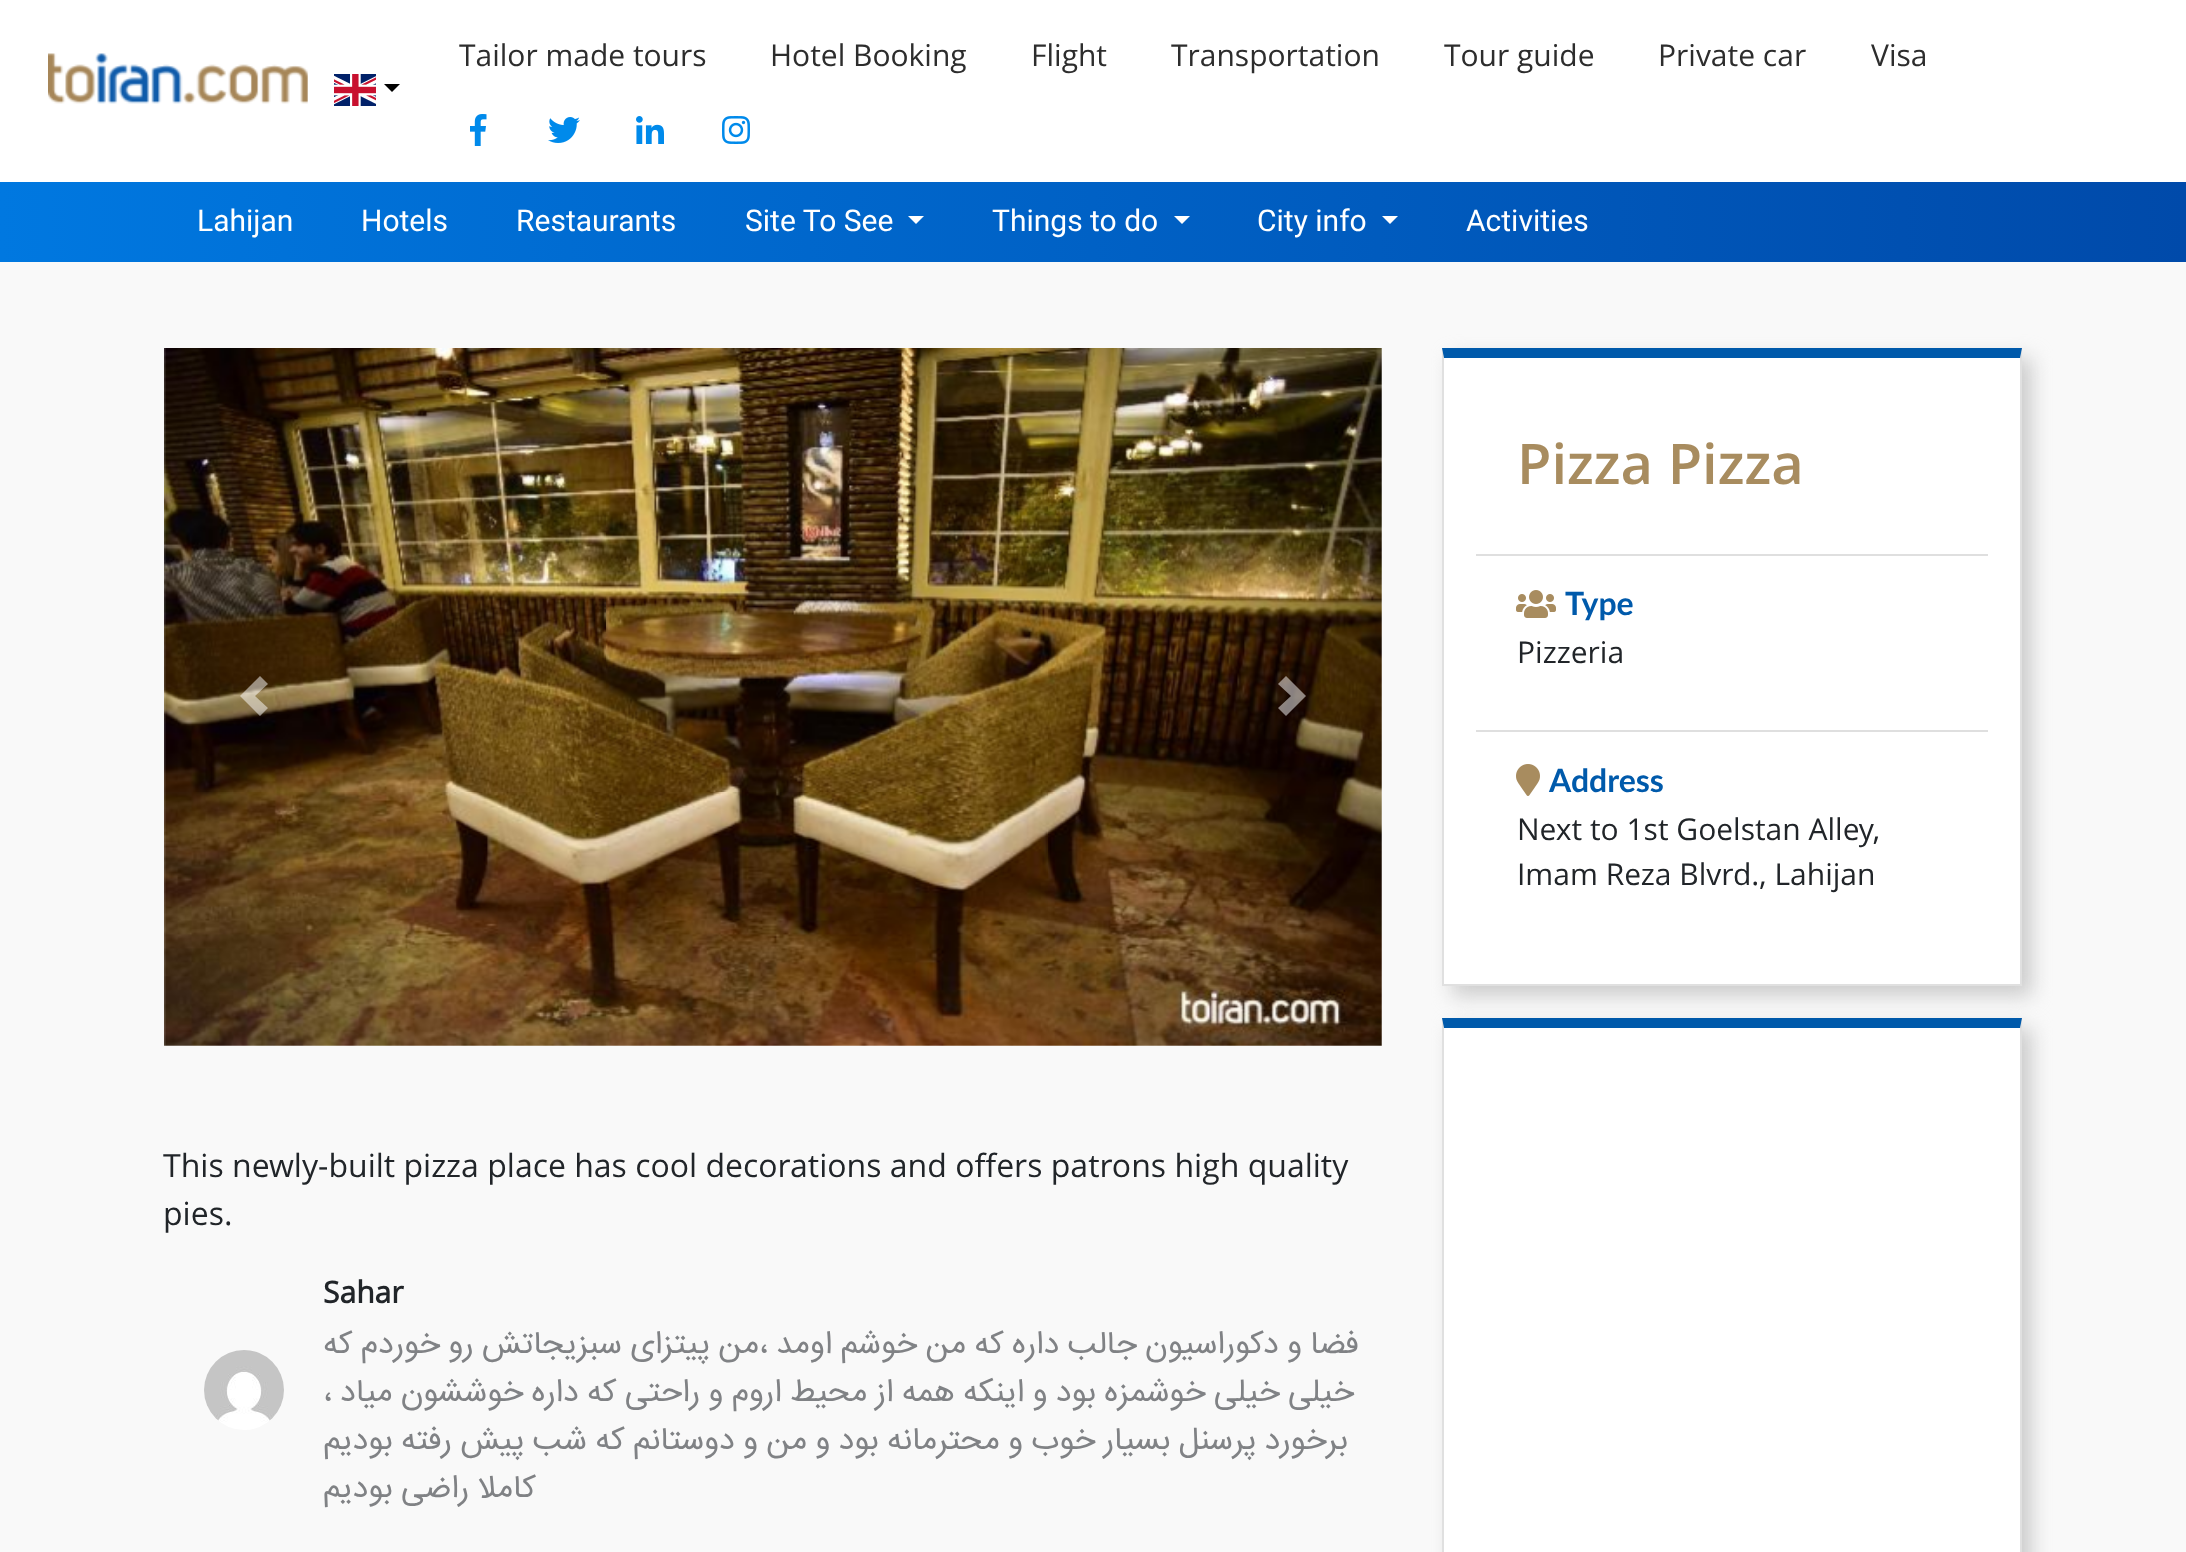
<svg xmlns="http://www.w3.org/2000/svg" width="2186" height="1552">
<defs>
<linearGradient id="g1" gradientUnits="userSpaceOnUse" x1="0" y1="222" x2="2186" y2="222"><stop offset="0" stop-color="#0078e0"/><stop offset="1" stop-color="#004aaa"/></linearGradient>
</defs>
<rect width="100%" height="100%" fill="#f9f9f9"/>
<rect width="2186" height="182" fill="#fff"/>
<image x="48" y="53" width="260" height="51" href="media/1.png"/>
<image x="334" y="74" width="42" height="32" href="media/2.png"/>
<path d="M384 84h16l-8 8z" fill="#000"/>
<text x="459" y="66" style="font-family:'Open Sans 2';font-size:30px;fill:#2d2d2d">Tailor made tours</text>
<text x="770" y="66" style="font-family:'Open Sans 2';font-size:30px;fill:#2d2d2d">Hotel Booking</text>
<text x="1031" y="66" style="font-family:'Open Sans 2';font-size:30px;fill:#2d2d2d">Flight</text>
<text x="1171" y="66" style="font-family:'Open Sans 2';font-size:30px;fill:#2d2d2d">Transportation</text>
<text x="1444" y="66" style="font-family:'Open Sans 2';font-size:30px;fill:#2d2d2d">Tour guide</text>
<text x="1658" y="66" style="font-family:'Open Sans 2';font-size:30px;fill:#2d2d2d">Private car</text>
<text x="1871" y="66" style="font-family:'Open Sans 2';font-size:30px;fill:#2d2d2d">Visa</text>
<image x="470" y="114" width="17" height="32" href="media/3.png"/>
<image x="548" y="117" width="32" height="26" href="media/4.png"/>
<image x="636" y="116" width="28" height="28" href="media/5.png"/>
<image x="722" y="116" width="28" height="28" href="media/6.png"/>
<rect y="182" width="2186" height="80" fill="url(#g1)"/>
<text x="197" y="231" style="font-family:Roboto;font-size:30px;fill:#fff">Lahijan</text>
<text x="361" y="231" style="font-family:Roboto;font-size:30px;fill:#fff">Hotels</text>
<text x="516" y="231" style="font-family:Roboto;font-size:30px;fill:#fff">Restaurants</text>
<text x="745" y="231" style="font-family:Roboto;font-size:30px;fill:#fff">Site To See</text>
<path d="M908 216h16l-8 8z" fill="#fff"/>
<text x="992" y="231" style="font-family:Roboto;font-size:30px;fill:#fff">Things to do</text>
<path d="M1174 216h16l-8 8z" fill="#fff"/>
<text x="1257" y="231" style="font-family:Roboto;font-size:30px;fill:#fff">City info</text>
<path d="M1382 216h16l-8 8z" fill="#fff"/>
<text x="1466" y="231" style="font-family:Roboto;font-size:30px;fill:#fff">Activities</text>
<rect x="1452" y="358" width="580" height="638" fill="#ccc" filter="blur(10px)"/>
<rect x="1442" y="348" width="580" height="638" fill="#fff"/>
<path d="M1442 348h580l-2 10h-576z" fill="#005aab"/>
<path d="M2022 348v638l-2-2v-626z" fill="#0000001f"/>
<path d="M2022 986h-580l2-2h576z" fill="#0000001f"/>
<path d="M1442 986v-638l2 10v626z" fill="#0000001f"/>
<text x="1517" y="484" style="font-family:Open Sans;font-size:56px;font-weight:600;fill:#a88c5f">Pizza Pizza</text>
<rect x="1476" y="554" width="512" height="2" fill="#dfdfdf"/>
<image x="1516" y="590" width="40" height="28" href="media/7.png"/>
<text x="1565" y="615" style="font-family:Lato;font-size:32px;font-weight:bold;fill:#005aab">Type</text>
<text x="1517" y="663" style="font-family:Open Sans;font-size:30px;fill:#212529">Pizzeria</text>
<rect x="1476" y="730" width="512" height="2" fill="#dfdfdf"/>
<image x="1516" y="764" width="24" height="32" href="media/8.png"/>
<text x="1549" y="792" style="font-family:Lato;font-size:32px;font-weight:bold;fill:#005aab">Address</text>
<text x="1517" y="840" style="font-family:Open Sans;font-size:30px;fill:#212529">Next to 1st Goelstan Alley,</text>
<text x="1517" y="885" style="font-family:Open Sans;font-size:30px;fill:#212529">Imam Reza Blvrd., Lahijan</text>
<rect x="1452" y="1028" width="580" height="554" fill="#ccc" filter="blur(10px)"/>
<rect x="1442" y="1018" width="580" height="534" fill="#fff"/>
<path d="M1442 1018h580l-2 10h-576z" fill="#005aab"/>
<path d="M2022 1018v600l-2-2v-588z" fill="#0000001f"/>
<path d="M1442 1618v-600l2 10v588z" fill="#0000001f"/>
<image x="164" y="348" width="1218" height="698" href="media/9.png"/>
<path d="M260 676l-20 20l20 20l8-8l-13-12l13-12z" fill="#ffffff80"/>
<path d="M1286 676l-8 8l13 12l-13 12l8 8l20-20z" fill="#ffffff80"/>
<text x="163" y="1177" style="font-family:Open Sans;font-size:32px;fill:#212529">This newly-built pizza place has cool decorations and offers patrons high quality</text>
<text x="163" y="1225" style="font-family:Open Sans;font-size:32px;fill:#212529">pies.</text>
<image x="204" y="1350" width="80" height="80" href="media/10.png"/>
<text x="323" y="1303" style="font-family:Open Sans;font-size:30px;font-weight:bold;fill:#212529">Sahar</text>
<text x="1359" y="1353" word-spacing="-0.75" style="font-family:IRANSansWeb;font-size:32px;direction:rtl;fill:#808285">فضا و دکوراسیون جالب داره که من خوشم اومد ،من پیتزای سبزیجاتش رو خوردم که</text>
<text x="1354" y="1401" word-spacing="-0.75" style="font-family:IRANSansWeb;font-size:32px;direction:rtl;fill:#808285">خیلی خیلی خوشمزه بود و اینکه همه از محیط اروم و راحتی که داره خوششون میاد ،</text>
<text x="1348" y="1449" word-spacing="-0.75" style="font-family:IRANSansWeb;font-size:32px;direction:rtl;fill:#808285">برخورد پرسنل بسیار خوب و محترمانه بود و من و دوستانم که شب پیش رفته بودیم</text>
<text x="536" y="1497" word-spacing="-0.75" style="font-family:IRANSansWeb;font-size:32px;direction:rtl;fill:#808285">کاملا راضی بودیم</text>
</svg>
